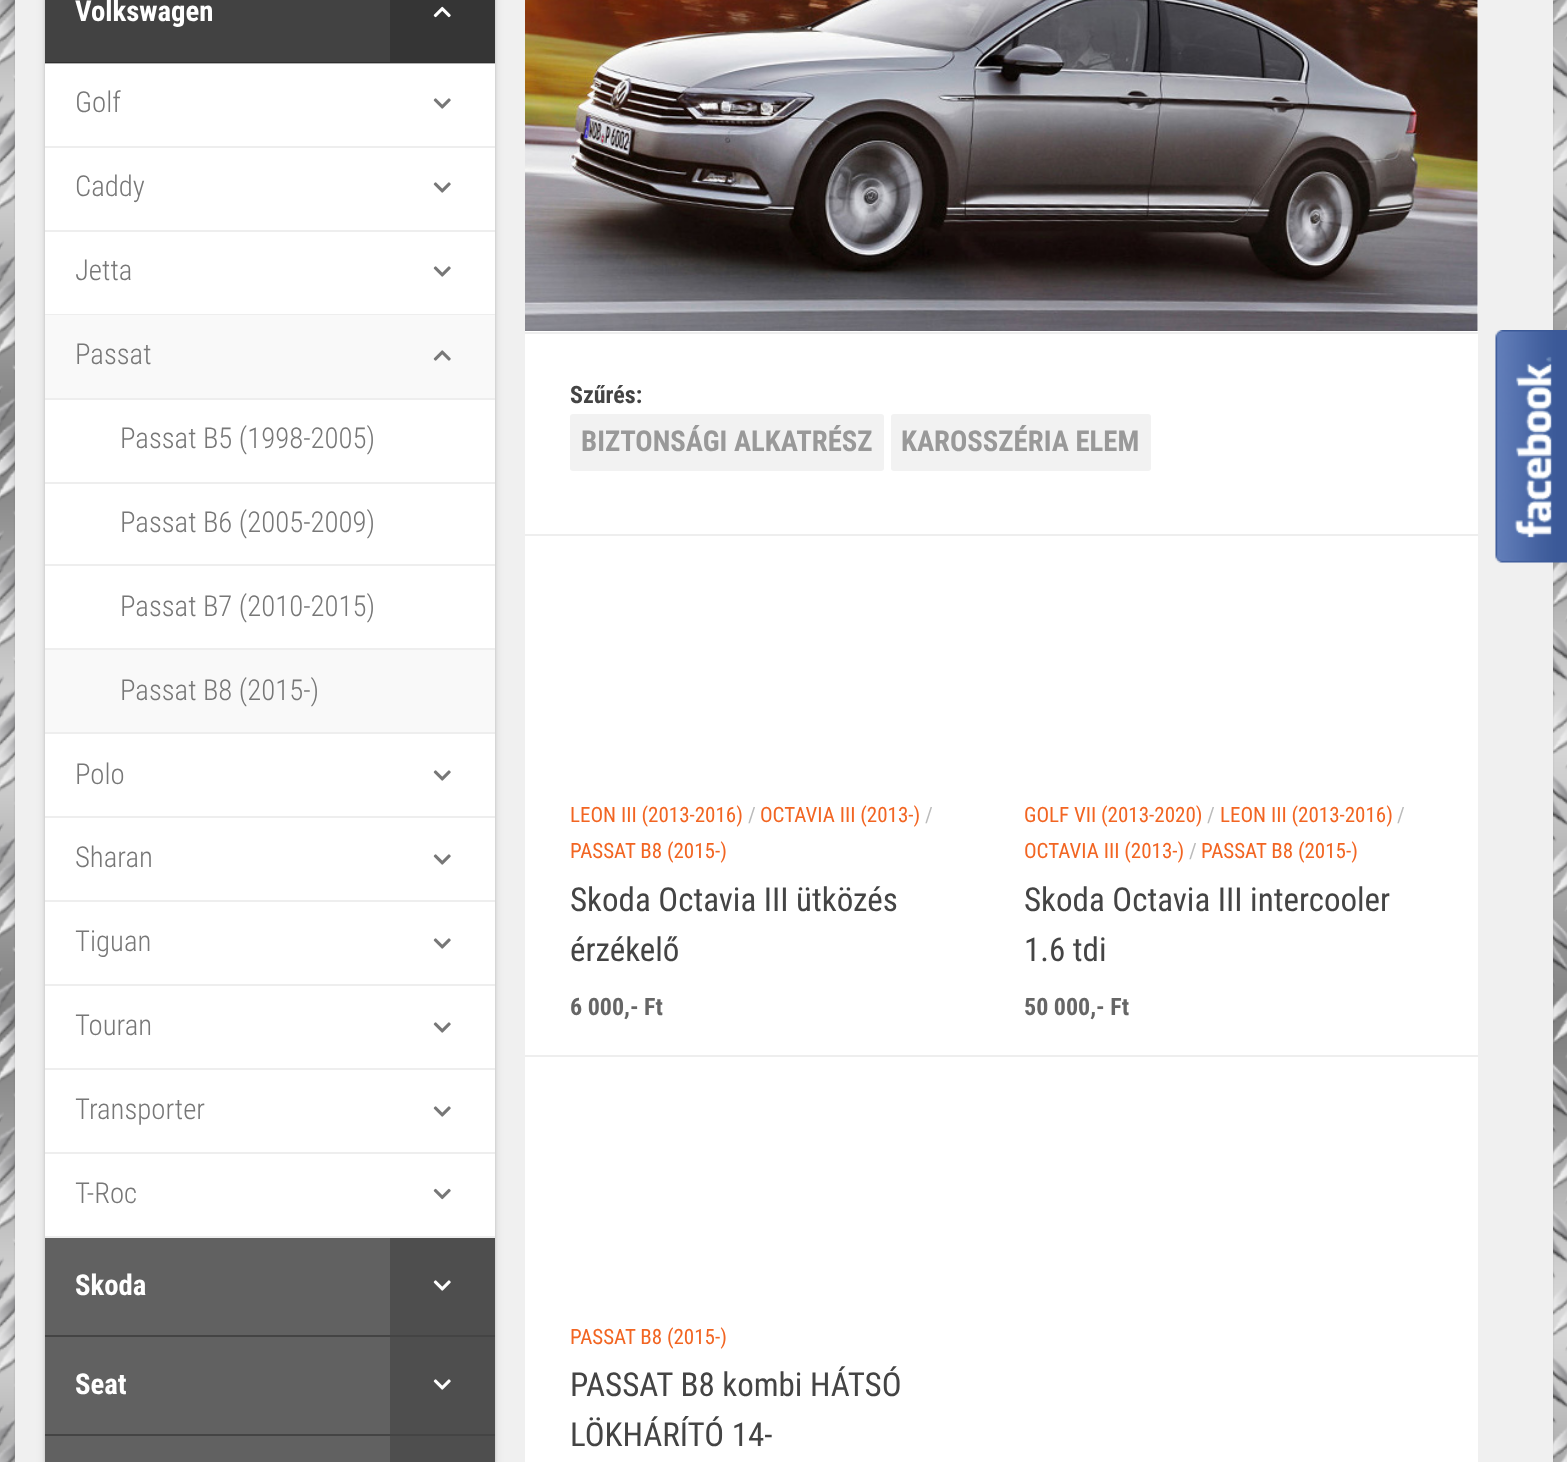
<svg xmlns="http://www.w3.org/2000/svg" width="1567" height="1462">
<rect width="100%" height="100%" fill="#fff"/>
<image x="0" y="0" width="1567" height="1462" href="media/1.png"/>
<rect x="15" y="-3" width="1538" height="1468" fill="#0000001a" filter="blur(1px)"/>
<rect x="525" width="953" height="1462" fill="#fff"/>
<rect x="15" width="510" height="1462" fill="#f0f0f0"/>
<rect x="45" y="-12" width="450" height="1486" fill="#0000001f" filter="blur(4px)"/>
<rect x="45" y="-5" width="450" height="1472" fill="#00000024" filter="blur(1.5px)"/>
<rect x="45" y="1238" width="345" height="224" fill="#616161"/>
<rect x="45" width="450" height="63" fill="#424242"/>
<rect x="45" y="63" width="450" height="1173" fill="#fff"/>
<rect x="45" y="62" width="450" height="2" fill="#0000004d"/>
<text x="75" y="21" style="font-family:Roboto Condensed;font-size:28.75px;font-weight:bold;fill:#fff">Volkswagen</text>
<rect x="390" width="105" height="62" fill="#353535"/>
<image x="433" y="6" width="18" height="12" href="media/2.png"/>
<rect x="45" y="146" width="450" height="2" fill="#eee"/>
<text x="75" y="112" style="font-family:Roboto Condensed;font-size:28.75px;font-weight:300;fill:#777">Golf</text>
<image x="433" y="98" width="18" height="11" href="media/3.png"/>
<rect x="45" y="230" width="450" height="2" fill="#eee"/>
<text x="75" y="196" style="font-family:Roboto Condensed;font-size:28.75px;font-weight:300;fill:#777">Caddy</text>
<image x="433" y="182" width="18" height="11" href="media/3.png"/>
<rect x="45" y="314" width="450" height="1" fill="#eee"/>
<text x="75" y="280" style="font-family:Roboto Condensed;font-size:28.75px;font-weight:300;fill:#777">Jetta</text>
<image x="433" y="266" width="18" height="11" href="media/3.png"/>
<rect x="45" y="315" width="450" height="83" fill="#f9f9f9"/>
<rect x="45" y="398" width="450" height="2" fill="#eee"/>
<text x="75" y="364" style="font-family:Roboto Condensed;font-size:28.75px;font-weight:300;fill:#777">Passat</text>
<image x="433" y="350" width="18" height="11" href="media/4.png"/>
<rect x="45" y="482" width="450" height="2" fill="#eee"/>
<text x="120" y="448" style="font-family:Roboto Condensed;font-size:28.75px;font-weight:300;fill:#777">Passat B5 (1998-2005)</text>
<rect x="45" y="564" width="450" height="2" fill="#eee"/>
<text x="120" y="532" style="font-family:Roboto Condensed;font-size:28.75px;font-weight:300;fill:#777">Passat B6 (2005-2009)</text>
<rect x="45" y="648" width="450" height="2" fill="#eee"/>
<text x="120" y="616" style="font-family:Roboto Condensed;font-size:28.75px;font-weight:300;fill:#777">Passat B7 (2010-2015)</text>
<rect x="45" y="650" width="450" height="82" fill="#f9f9f9"/>
<rect x="45" y="732" width="450" height="2" fill="#eee"/>
<text x="120" y="700" style="font-family:Roboto Condensed;font-size:28.75px;font-weight:300;fill:#777">Passat B8 (2015-)</text>
<rect x="45" y="816" width="450" height="2" fill="#eee"/>
<text x="75" y="784" style="font-family:Roboto Condensed;font-size:28.75px;font-weight:300;fill:#777">Polo</text>
<image x="433" y="770" width="18" height="11" href="media/3.png"/>
<rect x="45" y="900" width="450" height="2" fill="#eee"/>
<text x="75" y="867" style="font-family:Roboto Condensed;font-size:28.75px;font-weight:300;fill:#777">Sharan</text>
<image x="433" y="854" width="18" height="11" href="media/3.png"/>
<rect x="45" y="984" width="450" height="2" fill="#eee"/>
<text x="75" y="951" style="font-family:Roboto Condensed;font-size:28.75px;font-weight:300;fill:#777">Tiguan</text>
<image x="433" y="938" width="18" height="11" href="media/3.png"/>
<rect x="45" y="1068" width="450" height="2" fill="#eee"/>
<text x="75" y="1035" style="font-family:Roboto Condensed;font-size:28.75px;font-weight:300;fill:#777">Touran</text>
<image x="433" y="1022" width="18" height="11" href="media/3.png"/>
<rect x="45" y="1152" width="450" height="2" fill="#eee"/>
<text x="75" y="1119" style="font-family:Roboto Condensed;font-size:28.75px;font-weight:300;fill:#777">Transporter</text>
<image x="433" y="1106" width="18" height="11" href="media/3.png"/>
<rect x="45" y="1236" width="450" height="2" fill="#eee"/>
<text x="75" y="1203" style="font-family:Roboto Condensed;font-size:28.75px;font-weight:300;fill:#777">T-Roc</text>
<image x="433" y="1188" width="18" height="12" href="media/5.png"/>
<rect x="45" y="1335" width="450" height="2" fill="#444"/>
<text x="75" y="1295" style="font-family:Roboto Condensed;font-size:28.75px;font-weight:bold;fill:#fff">Skoda</text>
<rect x="390" y="1238" width="105" height="97" fill="#4e4e4e"/>
<image x="433" y="1280" width="18" height="11" href="media/6.png"/>
<rect x="45" y="1434" width="450" height="2" fill="#444"/>
<text x="75" y="1394" style="font-family:Roboto Condensed;font-size:28.75px;font-weight:bold;fill:#fff">Seat</text>
<rect x="390" y="1337" width="105" height="97" fill="#4e4e4e"/>
<image x="433" y="1379" width="18" height="11" href="media/6.png"/>
<rect x="390" y="1436" width="105" height="26" fill="#4e4e4e"/>
<image x="525" y="0" width="953" height="331" href="media/7.png"/>
<rect x="525" y="332" width="953" height="2" fill="#eee"/>
<rect x="525" y="534" width="953" height="2" fill="#eee"/>
<text x="570" y="403" style="font-family:Roboto Condensed;font-size:24px;font-weight:bold;fill:#444">Szűrés:</text>
<rect x="570" y="414" width="314" height="57" rx="3" fill="#f2f2f2"/>
<text x="581" y="451" style="font-family:Roboto Condensed;font-size:28.75px;font-weight:bold;fill:#999">BIZTONSÁGI ALKATRÉSZ</text>
<rect x="891" y="414" width="260" height="57" rx="3" fill="#f2f2f2"/>
<text x="901" y="451" style="font-family:Roboto Condensed;font-size:28.75px;font-weight:bold;fill:#999">KAROSSZÉRIA ELEM</text>
<rect x="525" y="1055" width="953" height="2" fill="#eee"/>
<text x="570" y="822" style="font-family:Roboto Condensed;font-size:21px;fill:#f26522">LEON III (2013-2016)</text>
<text x="748" y="822" style="font-family:Roboto Condensed;font-size:21px;fill:#bbb">/</text>
<text x="760" y="822" style="font-family:Roboto Condensed;font-size:21px;fill:#f26522">OCTAVIA III (2013-)</text>
<text x="925" y="822" style="font-family:Roboto Condensed;font-size:21px;fill:#bbb">/</text>
<text x="570" y="858" style="font-family:Roboto Condensed;font-size:21px;fill:#f26522">PASSAT B8 (2015-)</text>
<text x="570" y="911" style="font-family:Roboto Condensed;font-size:33px;fill:#444">Skoda Octavia III ütközés</text>
<text x="570" y="961" style="font-family:Roboto Condensed;font-size:33px;fill:#444">érzékelő</text>
<text x="570" y="1015" style="font-family:Roboto Condensed;font-size:24px;font-weight:bold;fill:#666">6 000,- Ft</text>
<text x="1024" y="822" style="font-family:Roboto Condensed;font-size:21px;fill:#f26522">GOLF VII (2013-2020)</text>
<text x="1207" y="822" style="font-family:Roboto Condensed;font-size:21px;fill:#bbb">/</text>
<text x="1220" y="822" style="font-family:Roboto Condensed;font-size:21px;fill:#f26522">LEON III (2013-2016)</text>
<text x="1397" y="822" style="font-family:Roboto Condensed;font-size:21px;fill:#bbb">/</text>
<text x="1024" y="858" style="font-family:Roboto Condensed;font-size:21px;fill:#f26522">OCTAVIA III (2013-)</text>
<text x="1189" y="858" style="font-family:Roboto Condensed;font-size:21px;fill:#bbb">/</text>
<text x="1201" y="858" style="font-family:Roboto Condensed;font-size:21px;fill:#f26522">PASSAT B8 (2015-)</text>
<text x="1024" y="911" style="font-family:Roboto Condensed;font-size:33px;fill:#444">Skoda Octavia III intercooler</text>
<text x="1024" y="961" style="font-family:Roboto Condensed;font-size:33px;fill:#444">1.6 tdi</text>
<text x="1024" y="1015" style="font-family:Roboto Condensed;font-size:24px;font-weight:bold;fill:#666">50 000,- Ft</text>
<text x="570" y="1344" style="font-family:Roboto Condensed;font-size:21px;fill:#f26522">PASSAT B8 (2015-)</text>
<text x="570" y="1396" style="font-family:Roboto Condensed;font-size:33px;fill:#444">PASSAT B8 kombi HÁTSÓ</text>
<text x="570" y="1446" style="font-family:Roboto Condensed;font-size:33px;fill:#444">LÖKHÁRÍTÓ 14-</text>
<rect x="1478" width="75" height="1462" fill="#f0f0f0"/>
<image x="1495" y="330" width="72" height="233" href="media/8.png"/>
</svg>
